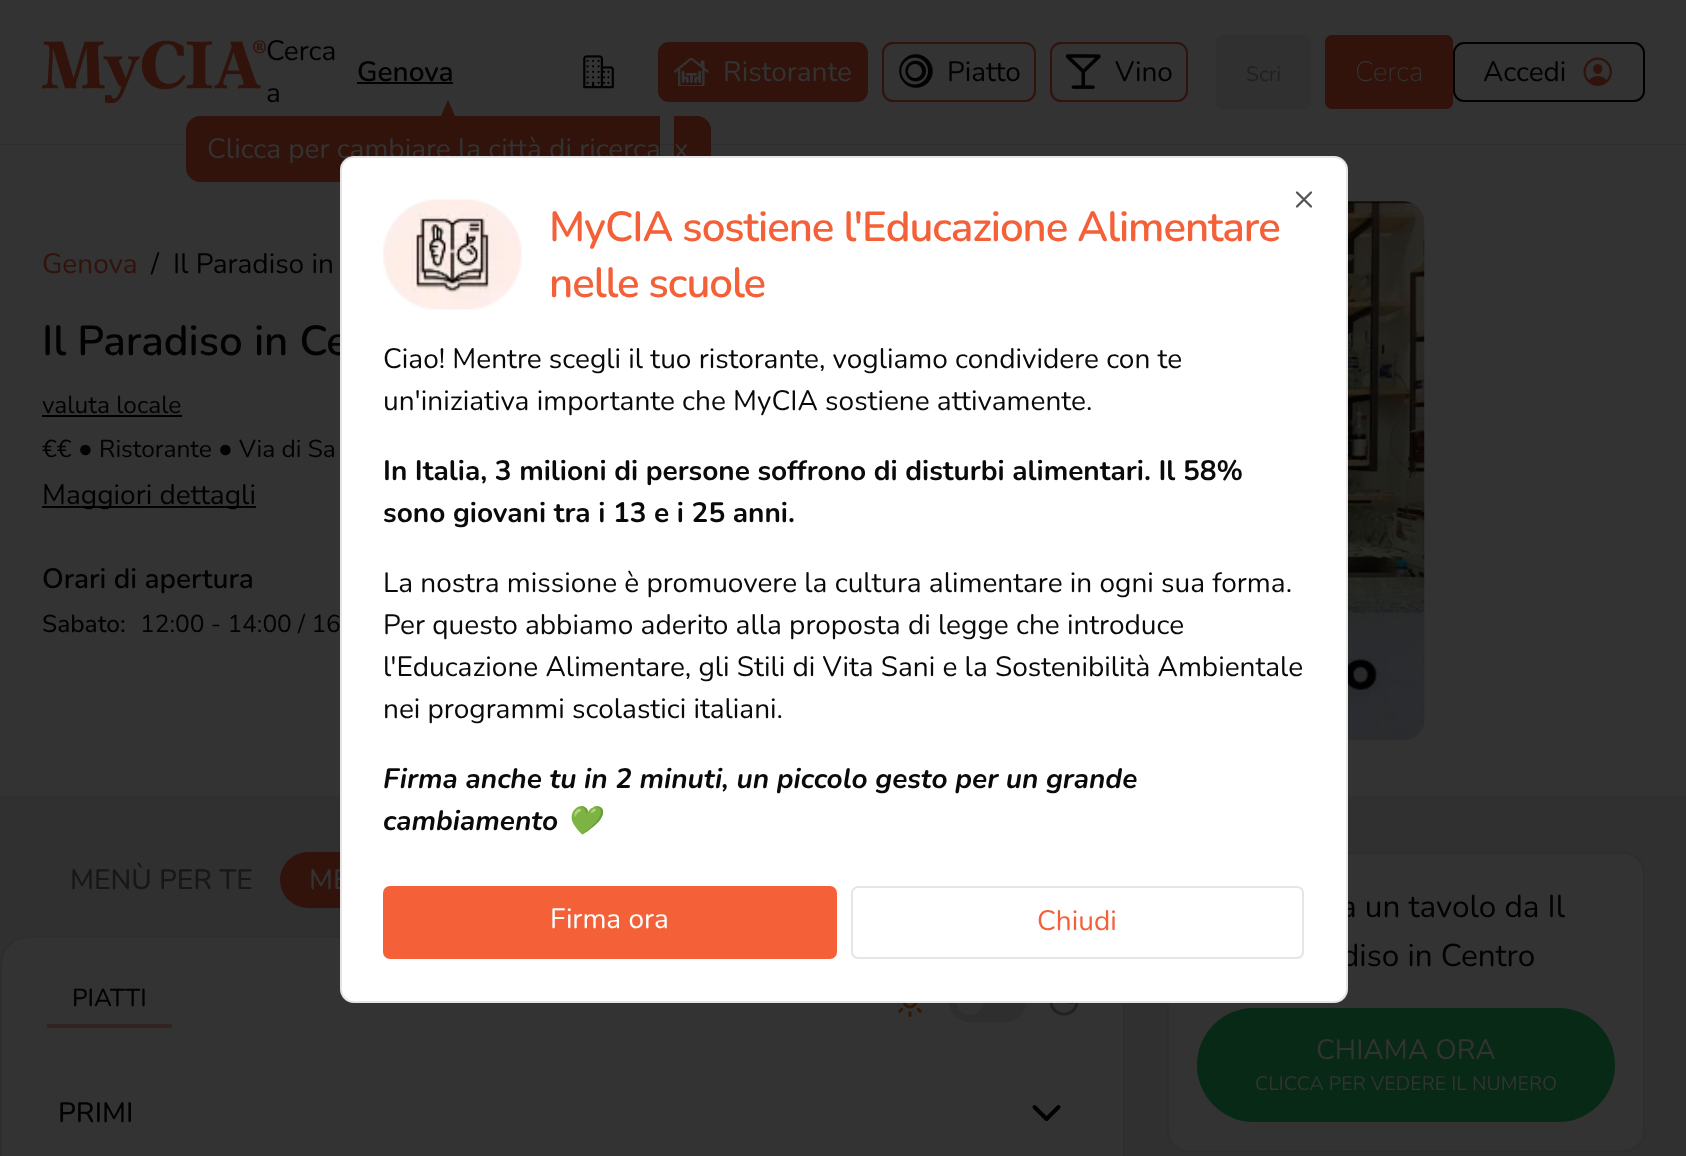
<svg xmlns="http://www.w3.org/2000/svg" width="1686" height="1156">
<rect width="100%" height="100%" fill="#333"/>
<image x="42" y="40" width="224" height="63" href="media/1.png"/>
<text x="266" y="60" style="font-family:Nunito;font-size:28px;fill:#020202">Cerca</text>
<text x="357" y="81" style="font-family:Nunito;font-size:28px;font-weight:600;fill:#020202">Genova</text>
<rect x="357" y="82" width="96" height="2" fill="#020202"/>
<image x="583" y="55" width="31" height="34" href="media/2.png"/>
<text x="266" y="102" style="font-family:Nunito;font-size:28px;fill:#020202">a</text>
<rect x="659" y="43" width="208" height="58" rx="10" fill="#31130b" stroke="#31130b" stroke-width="2"/>
<image x="674" y="58" width="35" height="28" href="media/3.png"/>
<text x="723" y="81" style="font-family:Nunito;font-size:28px;fill:#333">Ristorante</text>
<rect x="883" y="43" width="152" height="58" rx="10" fill="none" stroke="#31130b" stroke-width="2"/>
<image x="899" y="54" width="34" height="34" href="media/4.png"/>
<text x="947" y="81" style="font-family:Nunito;font-size:28px;fill:#020202">Piatto</text>
<rect x="1051" y="43" width="136" height="58" rx="10" fill="none" stroke="#31130b" stroke-width="2"/>
<image x="1066" y="54" width="35" height="35" href="media/5.png"/>
<text x="1115" y="81" style="font-family:Nunito;font-size:28px;fill:#020202">Vino</text>
<rect x="1216" y="35" width="95" height="74" rx="7" fill="#303030"/>
<text x="1246" y="81" style="font-family:Nunito;font-size:21px;fill:#1f2123">Scri</text>
<rect x="1326" y="36" width="126" height="72" rx="6" fill="#31130b" stroke="#31130b" stroke-width="2"/>
<text x="1355" y="81" style="font-family:Nunito;font-size:28px;font-weight:200;fill:#333">Cerca</text>
<rect x="1454" y="43" width="190" height="58" rx="10" fill="none" stroke="#000" stroke-width="2"/>
<text x="1483" y="81" style="font-family:Nunito;font-size:28px;fill:#020202">Accedi</text>
<image x="1583" y="57" width="29" height="29" href="media/6.png"/>
<rect y="144" width="1686" height="1" fill="#2e2e2e"/>
<text x="42" y="273" style="font-family:Nunito;font-size:28px;fill:#31130b">Genova</text>
<text x="151" y="273" style="font-family:Nunito;font-size:28px;fill:#020202">/</text>
<text x="173" y="273" style="font-family:Nunito;font-size:28px;fill:#020202">Il Paradiso in</text>
<text x="42" y="355" style="font-family:Nunito;font-size:42px;font-weight:600;fill:#020202">Il Paradiso in Ce</text>
<text x="42" y="413" style="font-family:Nunito;font-size:24.5px;fill:#020202">valuta locale</text>
<rect x="42" y="415" width="140" height="2" fill="#000"/>
<text x="42" y="457" style="font-family:Nunito;font-size:24.5px;fill:#020202">€€</text>
<text x="78" y="457" style="font-family:Liberation Sans;font-size:24.5px;fill:#020202">●</text>
<text x="99" y="457" style="font-family:Nunito;font-size:24.5px;fill:#020202">Ristorante</text>
<text x="218" y="457" style="font-family:Liberation Sans;font-size:24.5px;fill:#020202">●</text>
<text x="239" y="457" style="font-family:Nunito;font-size:24.5px;fill:#020202">Via di Sa</text>
<rect x="42" y="506" width="214" height="2" fill="#020202"/>
<text x="42" y="504" style="font-family:Nunito;font-size:28px;fill:#020202">Maggiori dettagli</text>
<text x="42" y="588" style="font-family:Nunito;font-size:28px;font-weight:600;fill:#020202">Orari di apertura</text>
<text x="42" y="632" style="font-family:Nunito;font-size:24.5px;font-weight:500;fill:#020202">Sabato:</text>
<text x="140" y="632" style="font-family:Nunito;font-size:24.5px;fill:#020202">12:00 - 14:00 / 16</text>
<image x="1348" y="201" width="77" height="540" href="media/7.png"/>
<rect y="796" width="1686" height="360" fill="#303030"/>
<text x="70" y="889" style="font-family:Nunito;font-size:28px;font-weight:500;fill:#171717">MENÙ PER TE</text>
<rect x="280" y="852" width="138" height="56" rx="28" fill="#31130b"/>
<text x="309" y="889" style="font-family:Nunito;font-size:28px;font-weight:500;fill:#333">ME</text>
<rect x="1" y="937" width="1123" height="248" rx="27" fill="#333" stroke="#2e2e2e" stroke-width="2"/>
<rect x="47" y="1024" width="125" height="4" fill="#322422"/>
<text x="72" y="1006" style="font-family:Nunito;font-size:24.5px;font-weight:500;fill:#020202">PIATTI</text>
<image x="898" y="1003" width="24" height="14" href="media/8.png"/>
<rect x="949" y="980" width="77" height="42" rx="21" fill="#2e2e2f"/>
<circle cx="970" cy="1001" r="14" fill="#333"/>
<image x="1049" y="1003" width="30" height="13" href="media/9.png"/>
<text x="58" y="1122" style="font-family:Nunito;font-size:28px;font-weight:500;fill:#020202">PRIMI</text>
<path d="M1034.5 1107l12 12l12-12" fill="none" stroke="#020202" stroke-width="3.9" stroke-linecap="round" stroke-linejoin="round"/>
<rect x="1168" y="853" width="476" height="298" rx="20" fill="#333" stroke="#2e2e2e" stroke-width="2"/>
<text x="1340" y="917" style="font-family:Nunito;font-size:31.5px;fill:#020202">a un tavolo da Il</text>
<text x="1341" y="966" style="font-family:Nunito;font-size:31.5px;fill:#020202">diso in Centro</text>
<rect x="1197" y="1008" width="418" height="114" rx="57" fill="#072915"/>
<text x="1316" y="1059" style="font-family:Nunito;font-size:28px;fill:#333">CHIAMA ORA</text>
<text x="1255" y="1090" style="font-family:Nunito;font-size:19.6px;fill:#333">CLICCA PER VEDERE IL NUMERO</text>
<path d="M200 116h460v66h-460c-7.5 0-14-6.5-14-14v-38c0-7.5 6.5-14 14-14z" fill="#31130b"/>
<path d="M457 121h-18l9-21z" fill="#31130b"/>
<text x="207" y="158" style="font-family:Nunito;font-size:28px;fill:#333">Clicca per cambiare la città di ricerca</text>
<path d="M674 116h23c7.5 0 14 6.5 14 14v38c0 7.5-6.5 14-14 14h-23z" fill="#31130b"/>
<text x="674" y="158" style="font-family:Nunito;font-size:28px;fill:#333">x</text>
<rect x="341" y="157" width="1006" height="845" rx="13" fill="#fff" stroke="#e5e5e5" stroke-width="2"/>
<path d="M1311 192.5l-14 14m0-14l14 14" fill="none" stroke="#545454" stroke-width="2.3" stroke-linecap="round" stroke-linejoin="round"/>
<image x="383" y="199" width="139" height="111" href="media/10.png"/>
<text x="549" y="241" style="font-family:Nunito;font-size:42px;font-weight:600;letter-spacing:-1.05px;fill:#f46139">MyCIA sostiene l'Educazione Alimentare</text>
<text x="549" y="297" style="font-family:Nunito;font-size:42px;font-weight:600;letter-spacing:-1.05px;fill:#f46139">nelle scuole</text>
<text x="383" y="368" style="font-family:Nunito;font-size:28px;fill:#0a0a0a">Ciao! Mentre scegli il tuo ristorante, vogliamo condividere con te</text>
<text x="383" y="410" style="font-family:Nunito;font-size:28px;fill:#0a0a0a">un'iniziativa importante che MyCIA sostiene attivamente.</text>
<text x="383" y="480" style="font-family:Nunito;font-size:28px;font-weight:bold;fill:#0a0a0a">In Italia, 3 milioni di persone soffrono di disturbi alimentari. Il 58%</text>
<text x="383" y="522" style="font-family:Nunito;font-size:28px;font-weight:bold;fill:#0a0a0a">sono giovani tra i 13 e i 25 anni.</text>
<text x="383" y="592" style="font-family:Nunito;font-size:28px;fill:#0a0a0a">La nostra missione è promuovere la cultura alimentare in ogni sua forma.</text>
<text x="383" y="634" style="font-family:Nunito;font-size:28px;fill:#0a0a0a">Per questo abbiamo aderito alla proposta di legge che introduce</text>
<text x="383" y="676" style="font-family:Nunito;font-size:28px;fill:#0a0a0a">l'Educazione Alimentare, gli Stili di Vita Sani e la Sostenibilità Ambientale</text>
<text x="383" y="718" style="font-family:Nunito;font-size:28px;fill:#0a0a0a">nei programmi scolastici italiani.</text>
<text x="383" y="788" style="font-family:Nunito;font-size:28px;font-weight:bold;font-style:italic;fill:#0a0a0a">Firma anche tu in 2 minuti, un piccolo gesto per un grande</text>
<text x="383" y="830" style="font-family:Nunito;font-size:28px;font-weight:bold;font-style:italic;fill:#0a0a0a">cambiamento</text>
<text x="566" y="830" style="font-family:Noto Color Emoji;font-size:28px;font-weight:bold;font-style:italic;fill:#0a0a0a">💚</text>
<rect x="383" y="886" width="454" height="73" rx="7" fill="#f46139"/>
<text x="550" y="928" style="font-family:Nunito;font-size:28px;fill:#fff">Firma ora</text>
<rect x="852" y="887" width="451" height="71" rx="6" fill="none" stroke="#e5e5e5" stroke-width="2"/>
<text x="1037" y="930" style="font-family:Nunito;font-size:28px;fill:#f46139">Chiudi</text>
</svg>
